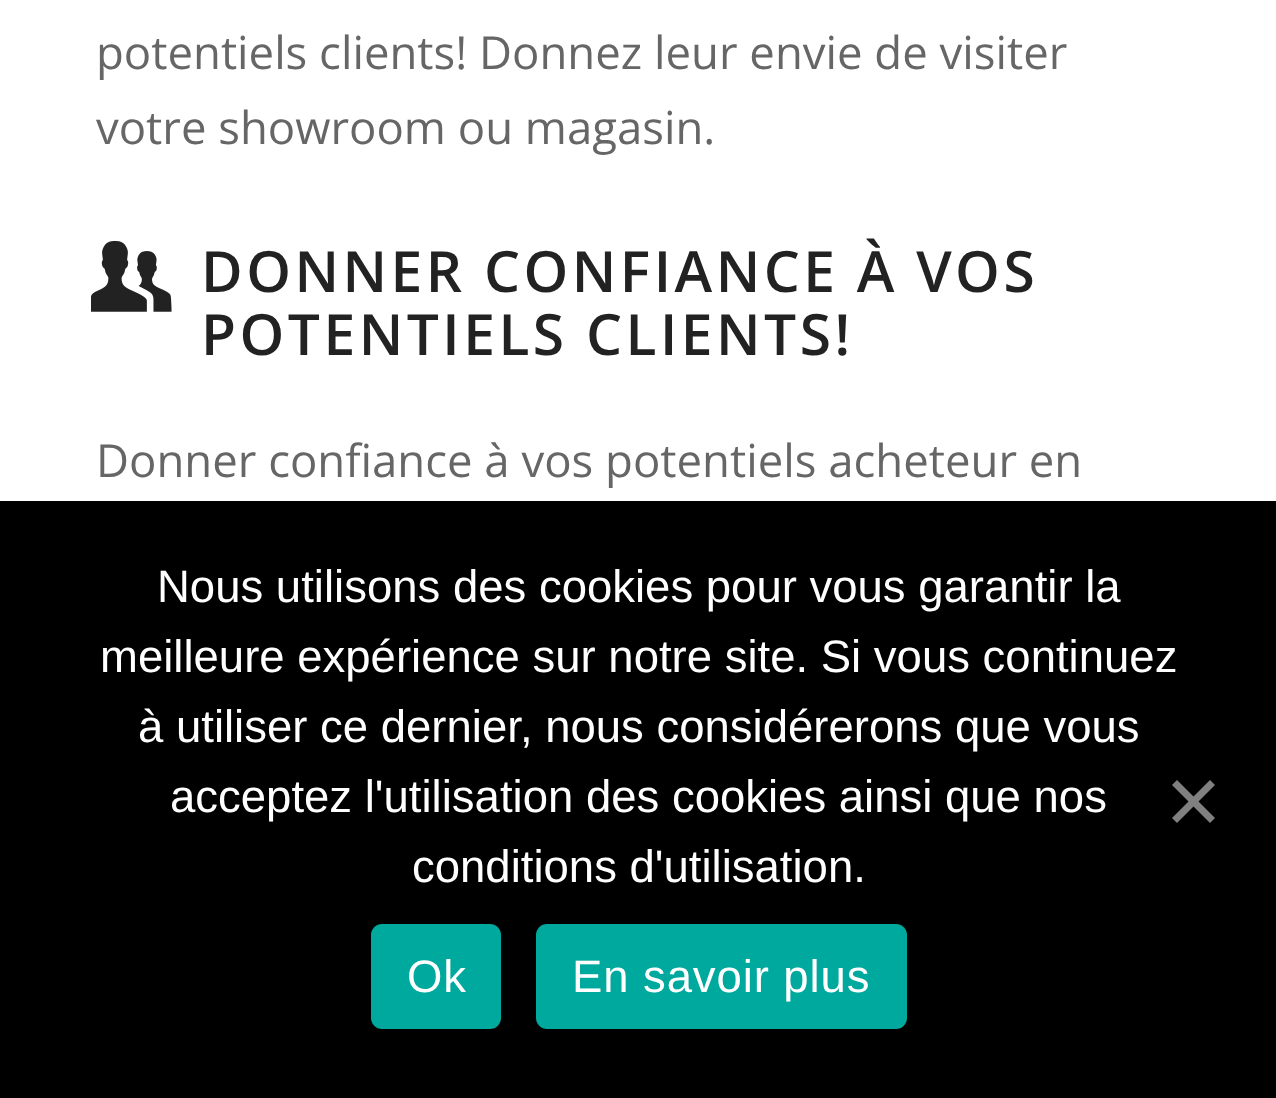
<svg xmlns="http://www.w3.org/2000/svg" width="1276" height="1098">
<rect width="100%" height="100%" fill="#fff"/>
<text x="96" y="69" style="font-family:Open Sans;font-size:45.5px;fill:#666">potentiels clients! Donnez leur envie de visiter</text>
<text x="96" y="144" style="font-family:Open Sans;font-size:45.5px;fill:#666">votre showroom ou magasin.</text>
<image x="91" y="240" width="81" height="72" href="media/1.png"/>
<text x="201" y="292" style="font-family:Open Sans;font-size:56.9px;font-weight:600;letter-spacing:3.5px;fill:#222">DONNER CONFIANCE À VOS</text>
<text x="201" y="355" style="font-family:Open Sans;font-size:56.9px;font-weight:600;letter-spacing:3.5px;fill:#222">POTENTIELS CLIENTS!</text>
<text x="96" y="477" style="font-family:Open Sans;font-size:45.5px;fill:#666">Donner confiance à vos potentiels acheteur en</text>
<rect y="501" width="1276" height="597" fill="#000"/>
<text x="157" y="602" style="font-family:Liberation Sans;font-size:45.5px;fill:#fff">Nous utilisons des cookies pour vous garantir la</text>
<text x="100" y="672" style="font-family:Liberation Sans;font-size:45.5px;fill:#fff">meilleure expérience sur notre site. Si vous continuez</text>
<text x="138" y="742" style="font-family:Liberation Sans;font-size:45.5px;fill:#fff">à utiliser ce dernier, nous considérerons que vous</text>
<text x="170" y="812" style="font-family:Liberation Sans;font-size:45.5px;fill:#fff">acceptez l'utilisation des cookies ainsi que nos</text>
<text x="412" y="882" style="font-family:Liberation Sans;font-size:45.5px;fill:#fff">conditions d'utilisation.</text>
<path d="M1210 780l5 5l-38 38l-5-5z" fill="#808080"/>
<path d="M1172 785l5-5l38 38l-5 5z" fill="#808080"/>
<rect x="371" y="924" width="130" height="105" rx="11" fill="#00a99d"/>
<text x="407" y="992" style="font-family:Liberation Sans;font-size:45.5px;letter-spacing:0.9px;fill:#fff">Ok</text>
<rect x="536" y="924" width="371" height="105" rx="11" fill="#00a99d"/>
<text x="572" y="992" style="font-family:Liberation Sans;font-size:45.5px;letter-spacing:0.9px;fill:#fff">En savoir plus</text>
</svg>
